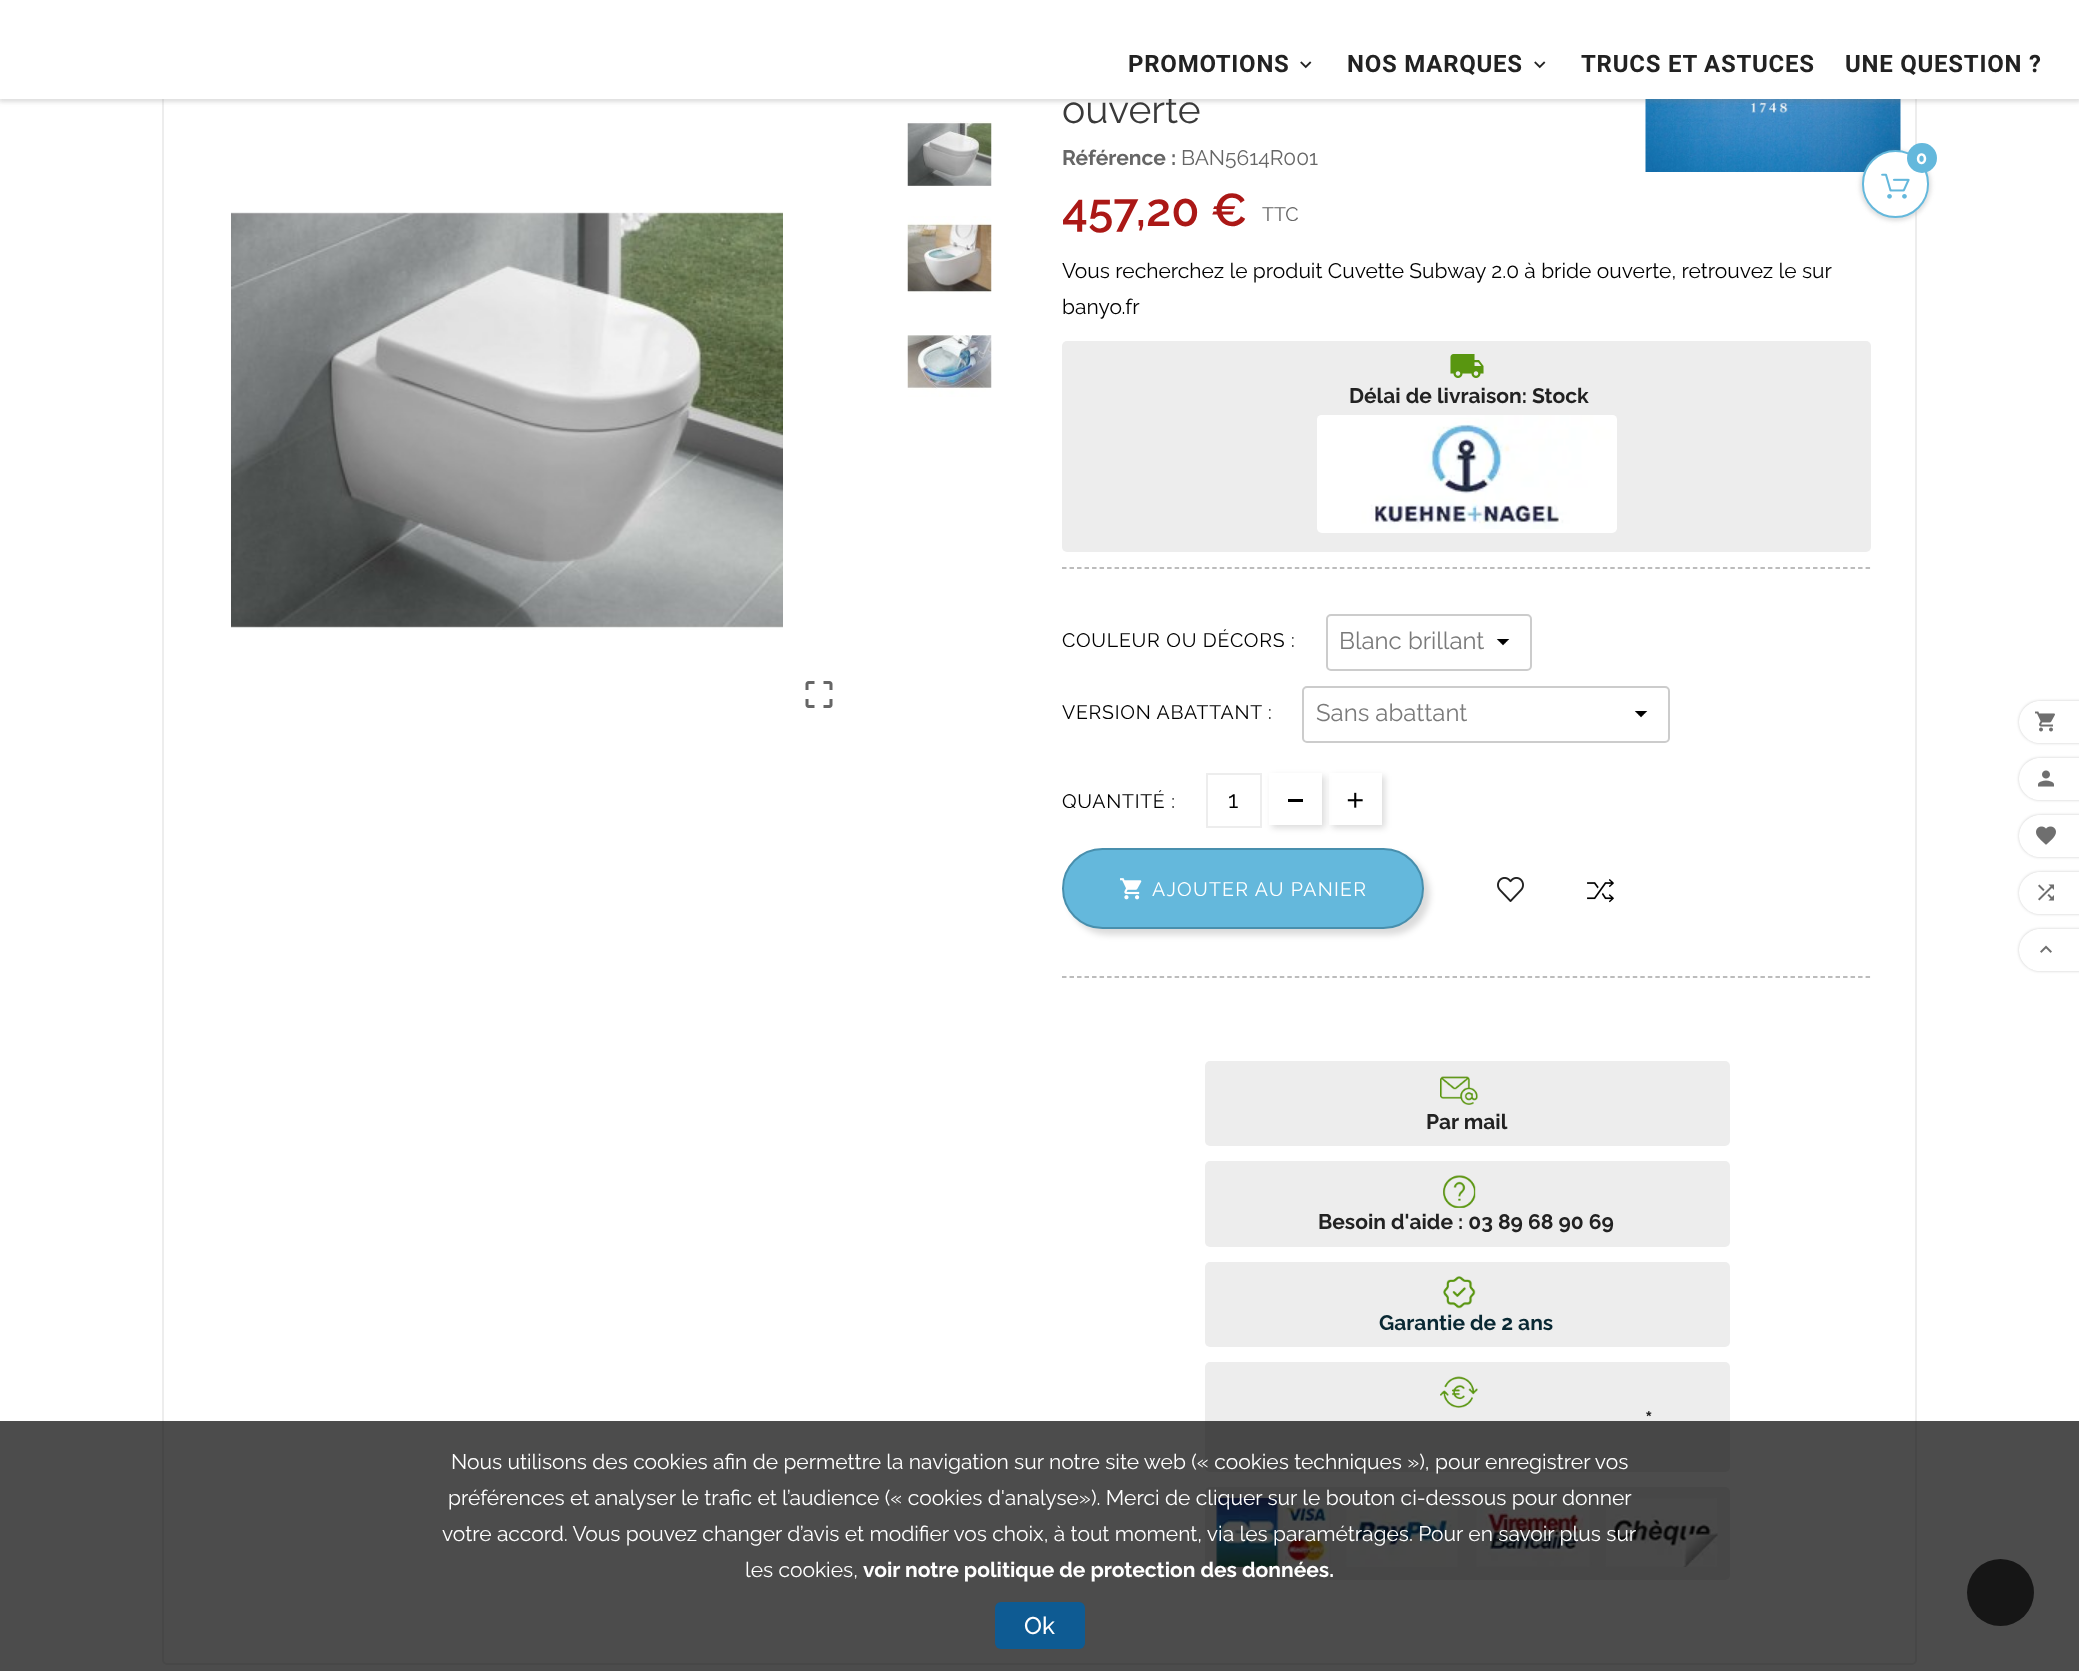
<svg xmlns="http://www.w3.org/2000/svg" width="2079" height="1671">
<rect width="100%" height="100%" fill="#fff"/>
<rect x="163" y="-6" width="1753" height="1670" rx="4" fill="none" stroke="#ededed" stroke-width="2"/>
<image x="1645" y="99" width="256" height="73" href="media/8.png"/>
<rect x="-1" width="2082" height="102" fill="#80808045" filter="blur(2px)"/>
<text x="1062" y="123" style="font-family:Raleway;font-size:39px;fill:#3a3a3a">ouverte</text>
<rect width="2079" height="99" fill="#fff"/>
<text x="1128" y="72" style="font-family:Roboto;font-size:24px;font-weight:bold;letter-spacing:0.75px;fill:#222">PROMOTIONS</text>
<image x="1300" y="61" width="12" height="8" href="media/1.png"/>
<text x="1347" y="72" style="font-family:Roboto;font-size:24px;font-weight:bold;letter-spacing:0.75px;fill:#222">NOS MARQUES</text>
<image x="1534" y="61" width="12" height="8" href="media/1.png"/>
<text x="1581" y="72" style="font-family:Roboto;font-size:24px;font-weight:bold;letter-spacing:0.75px;fill:#222">TRUCS ET ASTUCES</text>
<text x="1845" y="72" style="font-family:Roboto;font-size:24px;font-weight:bold;letter-spacing:0.75px;fill:#222">UNE QUESTION ?</text>
<rect x="1860" y="150" width="71" height="71" rx="35.5" fill="#80808045" filter="blur(2px)"/>
<rect x="1863" y="151" width="65" height="66" rx="32.5" fill="#fff" stroke="#64b8dc" stroke-width="2"/>
<image x="1881" y="173" width="29" height="26" href="media/2.png"/>
<circle cx="1922" cy="158" r="15" fill="#64b8dc"/>
<text x="1916" y="164" style="font-family:Raleway;font-size:18px;font-weight:bold;fill:#fff">0</text>
<image x="231" y="211" width="552" height="419" href="media/3.png"/>
<image x="805" y="681" width="28" height="27" href="media/4.png"/>
<image x="907" y="121" width="85" height="65" href="media/5.png"/>
<image x="907" y="216" width="85" height="78" href="media/6.png"/>
<image x="907" y="335" width="85" height="62" href="media/7.png"/>
<text x="1062" y="165" style="font-family:Raleway;font-size:21px;font-weight:bold;fill:#666">Référence :</text>
<text x="1181" y="165" style="font-family:Raleway;font-size:21px;fill:#666">BAN5614R001</text>
<text x="1062" y="226" style="font-family:Raleway;font-size:46px;font-weight:600;fill:#ab1816">457,20 €</text>
<text x="1262" y="221" style="font-family:Raleway;font-size:19.5px;fill:#666">TTC</text>
<text x="1062" y="278" style="font-family:Raleway;font-size:21px;fill:#000">Vous recherchez le produit Cuvette Subway 2.0 à bride ouverte, retrouvez le sur</text>
<text x="1062" y="314" style="font-family:Raleway;font-size:21px;fill:#000">banyo.fr</text>
<rect x="1062" y="341" width="809" height="211" rx="5" fill="#ededed"/>
<image x="1450" y="354" width="34" height="24" href="media/9.png"/>
<text x="1349" y="403" style="font-family:Raleway;font-size:21px;font-weight:bold;fill:#222">Délai de livraison: Stock</text>
<rect x="1317" y="416" width="300" height="117" rx="5" fill="#fff"/>
<image x="1317" y="415" width="300" height="114" href="media/10.png"/>
<path d="M1062 568h808.5" fill="none" stroke="#a7a7a7" stroke-width="1.5" stroke-dasharray="4.5 3.01"/>
<text x="1062" y="647" style="font-family:Raleway;font-size:19.5px;letter-spacing:0.75px;fill:#000">COULEUR OU DÉCORS :</text>
<image x="1496" y="639" width="14" height="7" href="media/11.png"/>
<rect x="1327" y="615" width="204" height="55" rx="4" fill="none" stroke="#ccc" stroke-width="2"/>
<text x="1339" y="649" style="font-family:Raleway;font-size:24px;fill:#7a7a7a">Blanc brillant</text>
<text x="1062" y="719" style="font-family:Raleway;font-size:19.5px;letter-spacing:0.75px;fill:#000">VERSION ABATTANT :</text>
<image x="1634" y="711" width="14" height="7" href="media/12.png"/>
<rect x="1303" y="687" width="366" height="55" rx="4" fill="none" stroke="#ccc" stroke-width="2"/>
<text x="1316" y="721" style="font-family:Raleway;font-size:24px;fill:#7a7a7a">Sans abattant</text>
<text x="1062" y="808" style="font-family:Raleway;font-size:19.5px;letter-spacing:0.75px;fill:#000">QUANTITÉ :</text>
<rect x="1207" y="774" width="54" height="53" fill="none" stroke="#ededed" stroke-width="2"/>
<text x="1228" y="808" style="font-family:Raleway;font-size:24px;fill:#000">1</text>
<rect x="1332" y="776" width="53" height="52" fill="#00000024" filter="blur(3px)"/>
<rect x="1329" y="773" width="53" height="52" fill="#fff"/>
<rect x="1272" y="776" width="53" height="52" fill="#00000024" filter="blur(3px)"/>
<rect x="1269" y="773" width="53" height="52" fill="#fff"/>
<rect x="1288" y="799" width="15" height="3" fill="#000"/>
<image x="1347" y="792" width="16" height="16" href="media/13.png"/>
<path d="M1062 977h808.5" fill="none" stroke="#a7a7a7" stroke-width="1.5" stroke-dasharray="4.5 3.01"/>
<image x="1497" y="877" width="27" height="25" href="media/14.png"/>
<image x="1587" y="879" width="27" height="24" href="media/15.png"/>
<rect x="1068" y="854" width="362" height="81" rx="40.5" fill="#00000024" filter="blur(3px)"/>
<rect x="1063" y="849" width="360" height="79" rx="39.5" fill="#64b8dc" stroke="#488fad" stroke-width="2"/>
<image x="1120" y="878" width="22" height="22" href="media/16.png"/>
<text x="1152" y="896" style="font-family:Raleway;font-size:19.5px;letter-spacing:1.25px;fill:#fff">AJOUTER AU PANIER</text>
<rect x="1205" y="1061" width="525" height="85" rx="5" fill="#ededed"/>
<image x="1440" y="1076" width="38" height="29" href="media/17.png"/>
<text x="1426" y="1129" style="font-family:Raleway;font-size:21px;font-weight:bold;fill:#222">Par mail</text>
<rect x="1205" y="1161" width="525" height="86" rx="5" fill="#ededed"/>
<image x="1443" y="1175" width="33" height="33" href="media/18.png"/>
<text x="1318" y="1229" style="font-family:Raleway;font-size:21px;font-weight:bold;fill:#222">Besoin d'aide : 03 89 68 90 69</text>
<rect x="1205" y="1262" width="525" height="85" rx="5" fill="#ededed"/>
<image x="1443" y="1276" width="33" height="33" href="media/19.png"/>
<text x="1379" y="1330" style="font-family:Raleway;font-size:21px;font-weight:bold;fill:#092833">Garantie de 2 ans</text>
<rect x="1205" y="1362" width="525" height="110" rx="5" fill="#ededed"/>
<image x="1440" y="1376" width="38" height="32" href="media/20.png"/>
<text x="1645" y="1427" style="font-family:Raleway;font-size:22px;font-weight:bold;fill:#222">*</text>
<rect x="1205" y="1487" width="525" height="93" rx="5" fill="#ededed"/>
<image x="1216" y="1498" width="502" height="69" href="media/21.png"/>
<rect x="2019" y="701" width="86" height="42" rx="21" fill="#00000033" filter="blur(1.5px)"/>
<path d="M2040 701h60v42h-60c-11.5 0-21-9.5-21-21c0-11.5 9.5-21 21-21z" fill="#fff"/>
<image x="2035" y="711" width="20" height="21" href="media/22.png"/>
<rect x="2019" y="758" width="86" height="42" rx="21" fill="#00000033" filter="blur(1.5px)"/>
<path d="M2040 758h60v42h-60c-11.5 0-21-9.5-21-21c0-11.5 9.5-21 21-21z" fill="#fff"/>
<image x="2038" y="770" width="16" height="17" href="media/23.png"/>
<rect x="2019" y="815" width="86" height="42" rx="21" fill="#00000033" filter="blur(1.5px)"/>
<path d="M2040 815h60v42h-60c-11.5 0-21-9.5-21-21c0-11.5 9.5-21 21-21z" fill="#fff"/>
<image x="2036" y="826" width="20" height="19" href="media/24.png"/>
<rect x="2019" y="872" width="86" height="42" rx="21" fill="#00000033" filter="blur(1.5px)"/>
<path d="M2040 872h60v42h-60c-11.5 0-21-9.5-21-21c0-11.5 9.5-21 21-21z" fill="#fff"/>
<image x="2038" y="884" width="16" height="17" href="media/25.png"/>
<rect x="2019" y="929" width="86" height="42" rx="21" fill="#00000033" filter="blur(1.5px)"/>
<path d="M2040 929h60v42h-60c-11.5 0-21-9.5-21-21c0-11.5 9.5-21 21-21z" fill="#fff"/>
<image x="2040" y="945" width="12" height="8" href="media/26.png"/>
<circle cx="2000.5" cy="1592.5" r="33.5" fill="#4c4c4c"/>
<rect y="1421" width="2079" height="250" fill="#000000b3"/>
<text x="451" y="1469" style="font-family:Raleway;font-size:21px;fill:#fff">Nous utilisons des cookies afin de permettre la navigation sur notre site web (« cookies techniques »), pour enregistrer vos</text>
<text x="448" y="1505" style="font-family:Raleway;font-size:21px;fill:#fff">préférences et analyser le trafic et l’audience (« cookies d'analyse»). Merci de cliquer sur le bouton ci-dessous pour donner</text>
<text x="442" y="1541" style="font-family:Raleway;font-size:21px;fill:#fff">votre accord. Vous pouvez changer d’avis et modifier vos choix, à tout moment, via les paramétrages. Pour en savoir plus sur</text>
<text x="745" y="1577" style="font-family:Raleway;font-size:21px;fill:#fff">les cookies,</text>
<text x="863" y="1577" style="font-family:Raleway;font-size:21px;font-weight:bold;fill:#fff">voir notre politique de protection des données.</text>
<rect x="995" y="1602" width="90" height="47" rx="6" fill="#0e5b93"/>
<text x="1024" y="1634" style="font-family:Raleway;font-size:24px;font-weight:500;fill:#fff">Ok</text>
</svg>
